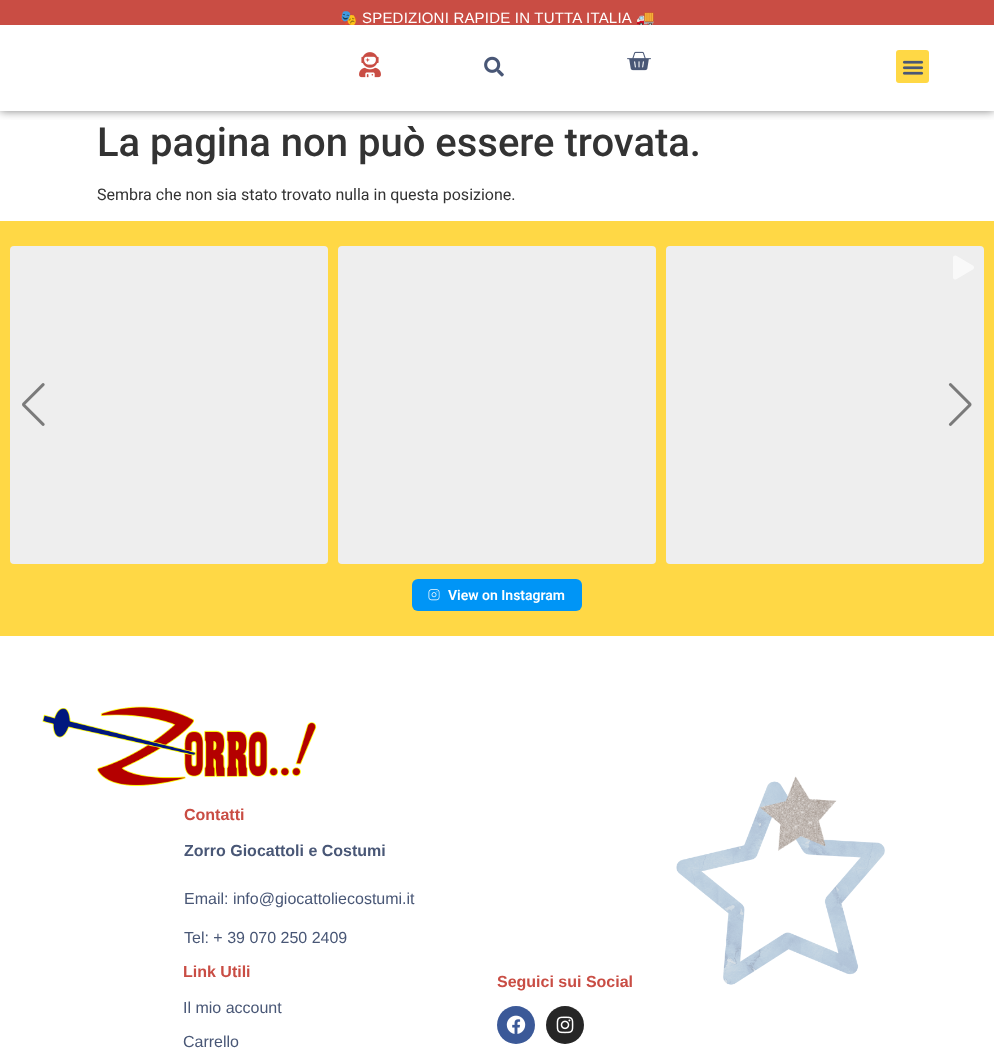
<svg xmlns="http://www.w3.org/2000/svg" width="994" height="1051">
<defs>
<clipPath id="clip1"><rect x="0" y="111" width="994" height="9"/></clipPath>
<clipPath id="clip2"><rect width="994" height="25"/></clipPath>
</defs>
<rect width="100%" height="100%" fill="#fff"/>
<g clip-path="url(#clip1)">
<rect y="25" width="994" height="86" fill="#00000080" filter="blur(5px)"/>
</g>
<image x="359" y="52" width="22" height="26" href="media/1.png"/>
<image x="484" y="56" width="20" height="21" href="media/2.png"/>
<image x="627" y="51" width="24" height="20" href="media/3.png"/>
<rect x="896" y="50" width="33" height="33" rx="3" fill="#ffd845"/>
<image x="902" y="60" width="22" height="15" href="media/4.png"/>
<rect width="994" height="25" fill="#c94d44"/>
<g clip-path="url(#clip2)">
<text x="339" y="23" style="font-family:Noto Color Emoji;font-size:15px;letter-spacing:0.2px;fill:#fff">🎭</text>
</g>
<text x="362" y="23" style="font-family:Liberation Sans;font-size:15px;letter-spacing:0.2px;fill:#fff">SPEDIZIONI RAPIDE IN TUTTA ITALIA</text>
<g clip-path="url(#clip2)">
<text x="636" y="23" style="font-family:Noto Color Emoji;font-size:15px;letter-spacing:0.2px;fill:#fff">🚚</text>
</g>
<text x="97" y="156" style="font-family:Roboto;font-size:40px;font-weight:500;fill:#333">La pagina non può essere trovata.</text>
<text x="97" y="200" style="font-family:Roboto;font-size:16px;fill:#333">Sembra che non sia stato trovato nulla in questa posizione.</text>
<rect y="221" width="994" height="415" fill="#ffd845"/>
<rect x="10" y="246" width="318" height="318" rx="4" fill="#eee"/>
<rect x="338" y="246" width="318" height="318" rx="4" fill="#eee"/>
<rect x="666" y="246" width="318" height="318" rx="4" fill="#eee"/>
<image x="953" y="255" width="21" height="25" href="media/5.png"/>
<image x="22" y="383" width="23" height="43" href="media/6.png"/>
<image x="948" y="383" width="24" height="43" href="media/7.png"/>
<rect x="412" y="579" width="170" height="32" rx="6" fill="#0095f6"/>
<image x="428" y="589" width="12" height="12" href="media/8.png"/>
<text x="448" y="600" style="font-family:Roboto;font-size:14px;font-weight:600;fill:#fff">View on Instagram</text>
<image x="42" y="706" width="275" height="81" href="media/9.png"/>
<image x="676" y="781" width="209" height="204" href="media/11.png"/>
<image x="760" y="776" width="77" height="75" href="media/10.png"/>
<text x="184" y="820" style="font-family:Liberation Sans;font-size:16px;font-weight:bold;fill:#c94d44">Contatti</text>
<text x="184" y="856" style="font-family:Liberation Sans;font-size:16px;font-weight:bold;fill:#495776">Zorro Giocattoli e Costumi</text>
<text x="184" y="904" style="font-family:Liberation Sans;font-size:16px;fill:#495776">Email: info@giocattoliecostumi.it</text>
<text x="184" y="943" style="font-family:Liberation Sans;font-size:16px;fill:#495776">Tel: + 39 070 250 2409</text>
<text x="183" y="977" style="font-family:Liberation Sans;font-size:16px;font-weight:bold;fill:#c94d44">Link Utili</text>
<text x="183" y="1013" style="font-family:Liberation Sans;font-size:16px;fill:#495776">Il mio account</text>
<text x="183" y="1047" style="font-family:Liberation Sans;font-size:16px;fill:#495776">Carrello</text>
<text x="497" y="987" style="font-family:Liberation Sans;font-size:16px;font-weight:bold;fill:#c94d44">Seguici sui Social</text>
<circle cx="516" cy="1025" r="19" fill="#3b5998"/>
<image x="506" y="1015" width="20" height="19" href="media/12.png"/>
<circle cx="565" cy="1025" r="19" fill="#262626"/>
<image x="556" y="1016" width="18" height="18" href="media/13.png"/>
</svg>
